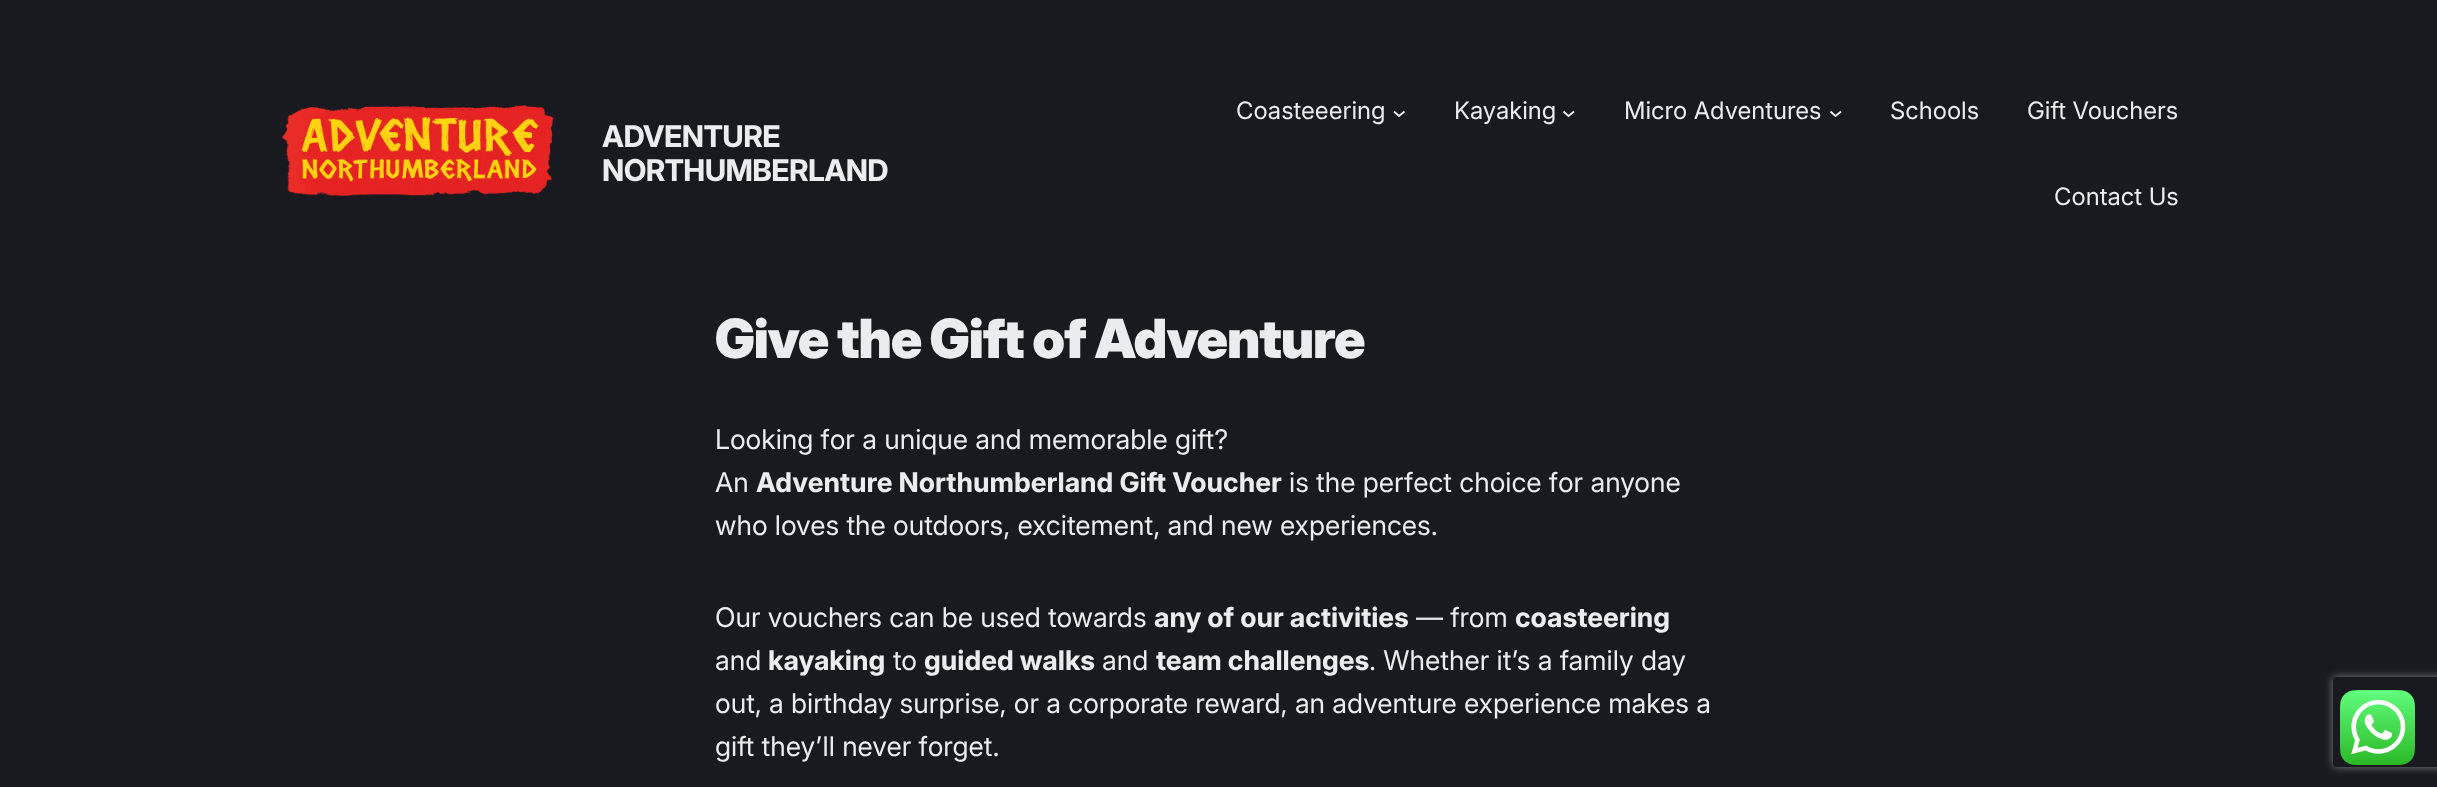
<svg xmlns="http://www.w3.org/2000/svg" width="2437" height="787">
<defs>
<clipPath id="clip1"><path d="M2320 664h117v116h-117zm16 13h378c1.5 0 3 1.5 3 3v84c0 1.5-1.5 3-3 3h-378c-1.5 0-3-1.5-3-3v-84c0-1.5 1.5-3 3-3z" clip-rule="evenodd"/></clipPath>
</defs>
<rect width="100%" height="100%" fill="#181a20"/>
<image x="282" y="105" width="272" height="92" href="media/1.png"/>
<text x="602" y="147" style="font-family:'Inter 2';font-size:30px;font-weight:bold;letter-spacing:-0.6px;fill:#eaecef">ADVENTURE</text>
<text x="602" y="181" style="font-family:'Inter 2';font-size:30px;font-weight:bold;letter-spacing:-0.6px;fill:#eaecef">NORTHUMBERLAND</text>
<text x="1236" y="119" style="font-family:'Inter 2';font-size:24px;fill:#eaecef">Coasteeering</text>
<path d="M1394 111.5l5 4.5l5.5-4.5" fill="none" stroke="#eaecef" stroke-width="1.8"/>
<text x="1454" y="119" style="font-family:'Inter 2';font-size:24px;fill:#eaecef">Kayaking</text>
<path d="M1563.5 111.5l5 4.5l5.5-4.5" fill="none" stroke="#eaecef" stroke-width="1.8"/>
<text x="1624" y="119" style="font-family:'Inter 2';font-size:24px;fill:#eaecef">Micro Adventures</text>
<path d="M1830.5 111.5l5 4.5l5.5-4.5" fill="none" stroke="#eaecef" stroke-width="1.8"/>
<text x="1890" y="119" style="font-family:'Inter 2';font-size:24px;fill:#eaecef">Schools</text>
<text x="2027" y="119" style="font-family:'Inter 2';font-size:24px;fill:#eaecef">Gift Vouchers</text>
<text x="2054" y="205" style="font-family:'Inter 2';font-size:24px;fill:#eaecef">Contact Us</text>
<text x="715" y="358" style="font-family:Inter;font-size:54px;font-weight:900;letter-spacing:-1.1px;fill:#eaecef">Give the Gift of Adventure</text>
<text x="715" y="449" style="font-family:Inter;font-size:27px;fill:#eaecef">Looking for a unique and memorable gift?</text>
<text x="715" y="492" style="font-family:Inter;font-size:27px;fill:#eaecef">An</text>
<text x="756" y="492" style="font-family:Inter;font-size:27px;font-weight:bold;fill:#eaecef">Adventure Northumberland Gift Voucher</text>
<text x="1289" y="492" style="font-family:Inter;font-size:27px;fill:#eaecef">is the perfect choice for anyone</text>
<text x="715" y="535" style="font-family:Inter;font-size:27px;fill:#eaecef">who loves the outdoors, excitement, and new experiences.</text>
<text x="715" y="627" style="font-family:Inter;font-size:27px;fill:#eaecef">Our vouchers can be used towards</text>
<text x="1154" y="627" style="font-family:Inter;font-size:27px;font-weight:bold;fill:#eaecef">any of our activities</text>
<text x="1416" y="627" style="font-family:Inter;font-size:27px;fill:#eaecef">— from</text>
<text x="1515" y="627" style="font-family:Inter;font-size:27px;font-weight:bold;fill:#eaecef">coasteering</text>
<text x="715" y="670" style="font-family:Inter;font-size:27px;fill:#eaecef">and</text>
<text x="768" y="670" style="font-family:Inter;font-size:27px;font-weight:bold;fill:#eaecef">kayaking</text>
<text x="893" y="670" style="font-family:Inter;font-size:27px;fill:#eaecef">to</text>
<text x="924" y="670" style="font-family:Inter;font-size:27px;font-weight:bold;fill:#eaecef">guided walks</text>
<text x="1102" y="670" style="font-family:Inter;font-size:27px;fill:#eaecef">and</text>
<text x="1156" y="670" style="font-family:Inter;font-size:27px;font-weight:bold;fill:#eaecef">team challenges</text>
<text x="1369" y="670" style="font-family:Inter;font-size:27px;fill:#eaecef">. Whether it’s a family day</text>
<text x="715" y="713" style="font-family:Inter;font-size:27px;fill:#eaecef">out, a birthday surprise, or a corporate reward, an adventure experience makes a</text>
<text x="715" y="756" style="font-family:Inter;font-size:27px;fill:#eaecef">gift they’ll never forget.</text>
<g clip-path="url(#clip1)">
<rect x="2333" y="677" width="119" height="90" rx="3" fill="#808080" filter="blur(4px)"/>
</g>
<image x="2340" y="690" width="75" height="75" href="media/2.png"/>
</svg>
